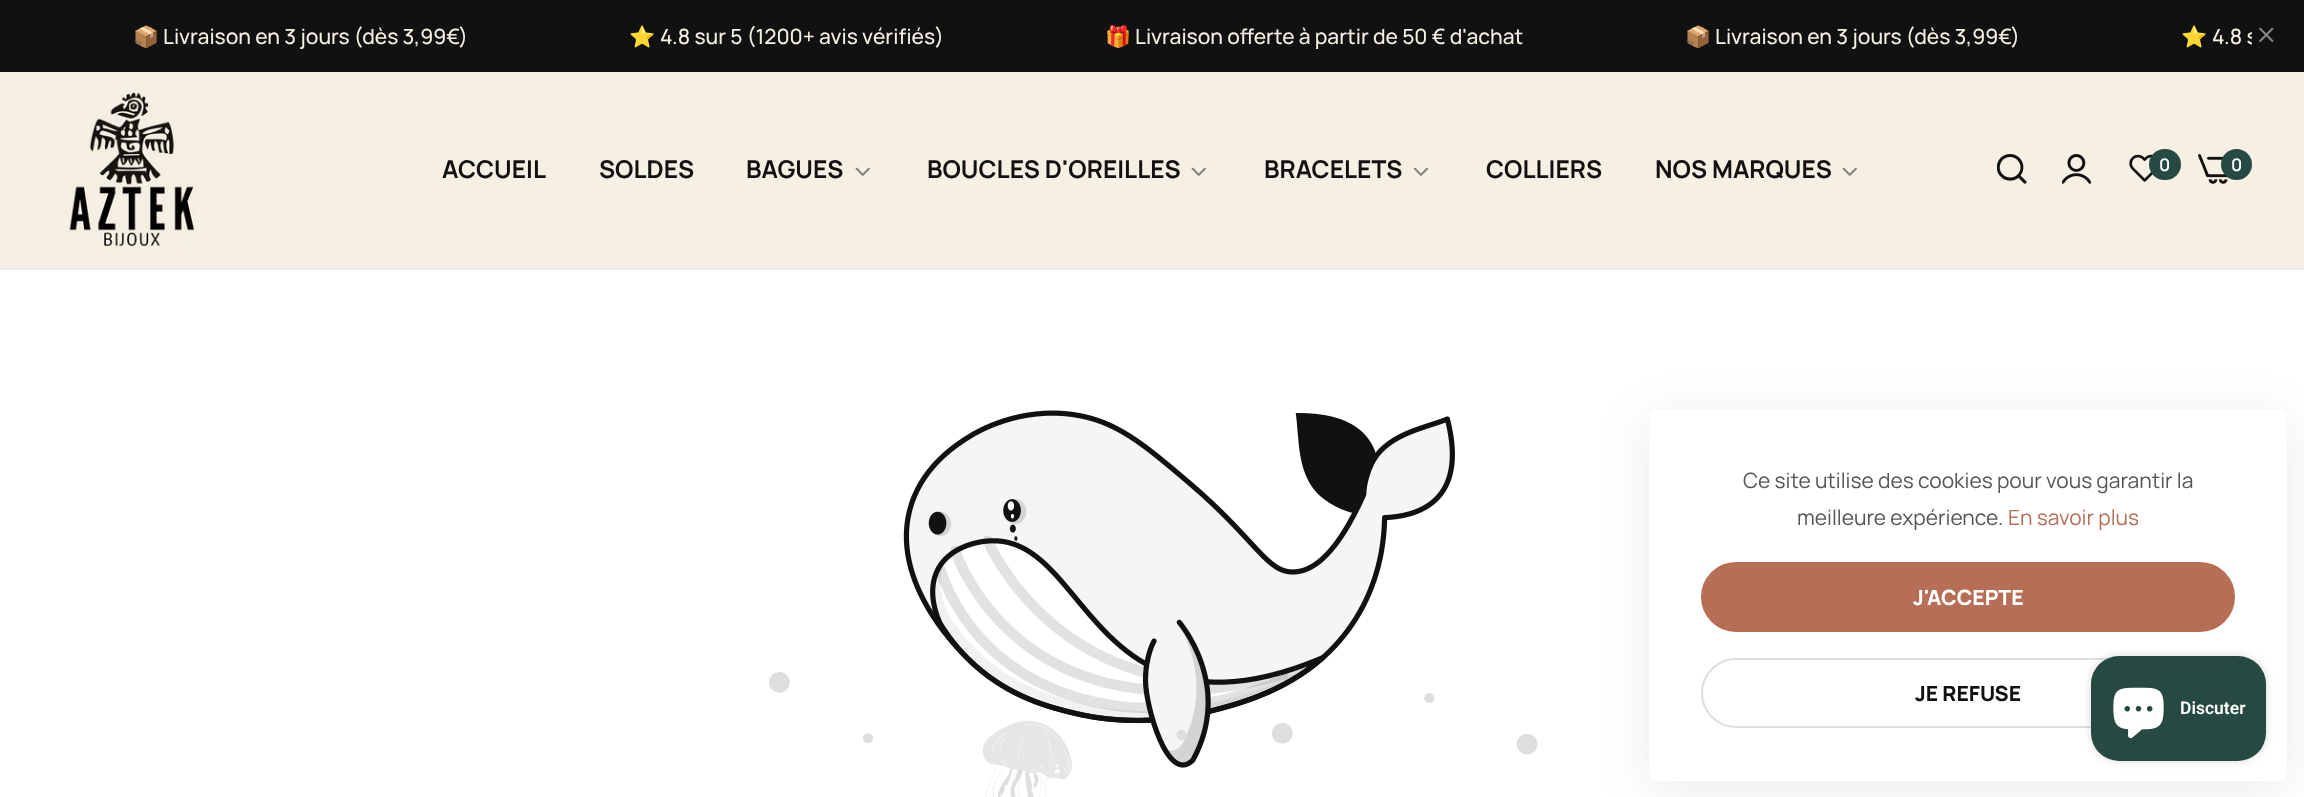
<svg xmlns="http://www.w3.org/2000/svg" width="2304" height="797">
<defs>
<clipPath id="clip1"><rect x="53" width="2199" height="72"/></clipPath>
</defs>
<rect width="100%" height="100%" fill="#fff"/>
<rect width="2304" height="72" fill="#111"/>
<text x="133" y="44" style="font-family:Noto Color Emoji;font-size:21px;fill:#f6efe3">📦</text>
<text x="163" y="44" style="font-family:Manrope;font-size:21px;font-weight:500;fill:#f6efe3">Livraison en 3 jours (dès 3,99€)</text>
<text x="629" y="44" style="font-family:Noto Color Emoji;font-size:21px;fill:#f6efe3">⭐</text>
<text x="660" y="44" style="font-family:Manrope;font-size:21px;font-weight:500;fill:#f6efe3">4.8 sur 5 (1200+ avis vérifiés)</text>
<text x="1105" y="44" style="font-family:Noto Color Emoji;font-size:21px;fill:#f6efe3">🎁</text>
<text x="1135" y="44" style="font-family:Manrope;font-size:21px;font-weight:500;fill:#f6efe3">Livraison offerte à partir de 50 € d'achat</text>
<text x="1685" y="44" style="font-family:Noto Color Emoji;font-size:21px;fill:#f6efe3">📦</text>
<text x="1715" y="44" style="font-family:Manrope;font-size:21px;font-weight:500;fill:#f6efe3">Livraison en 3 jours (dès 3,99€)</text>
<text x="2181" y="44" style="font-family:Noto Color Emoji;font-size:21px;fill:#f6efe3">⭐</text>
<g clip-path="url(#clip1)">
<text x="2212" y="44" style="font-family:Manrope;font-size:21px;font-weight:500;fill:#f6efe3">4.8 s</text>
</g>
<image x="2259" y="27" width="15" height="15" href="media/1.png"/>
<rect y="268" width="2304" height="2" fill="#ebebeb"/>
<rect y="72" width="2304" height="196" fill="#f6efe3"/>
<image x="68" y="91" width="127" height="156" href="media/2.png"/>
<text x="442" y="178" style="font-family:Manrope;font-size:24.5px;font-weight:bold;fill:#111">ACCUEIL</text>
<text x="599" y="178" style="font-family:Manrope;font-size:24.5px;font-weight:bold;fill:#111">SOLDES</text>
<text x="746" y="178" style="font-family:Manrope;font-size:24.5px;font-weight:bold;fill:#111">BAGUES</text>
<image x="855" y="167" width="15" height="9" href="media/3.png"/>
<text x="927" y="178" style="font-family:Manrope;font-size:24.5px;font-weight:bold;fill:#111">BOUCLES D'OREILLES</text>
<image x="1191" y="167" width="15" height="9" href="media/3.png"/>
<text x="1264" y="178" style="font-family:Manrope;font-size:24.5px;font-weight:bold;fill:#111">BRACELETS</text>
<image x="1413" y="167" width="16" height="9" href="media/4.png"/>
<text x="1486" y="178" style="font-family:Manrope;font-size:24.5px;font-weight:bold;fill:#111">COLLIERS</text>
<text x="1655" y="178" style="font-family:Manrope;font-size:24.5px;font-weight:bold;fill:#111">NOS MARQUES</text>
<image x="1842" y="167" width="15" height="9" href="media/3.png"/>
<image x="1997" y="154" width="30" height="30" href="media/5.png"/>
<image x="2062" y="154" width="29" height="30" href="media/6.png"/>
<image x="2129" y="154" width="24" height="28" href="media/7.png"/>
<rect x="2149" y="149" width="32" height="31" rx="15.5" fill="#264941"/>
<text x="2159" y="171" style="font-family:Manrope;font-size:17.5px;font-weight:600;fill:#fff">0</text>
<image x="2198" y="154" width="31" height="30" href="media/8.png"/>
<circle cx="2236.5" cy="164.5" r="15.5" fill="#264941"/>
<text x="2231" y="171" style="font-family:Manrope;font-size:17.5px;font-weight:600;fill:#fff">0</text>
<image x="769" y="410" width="769" height="387" href="media/9.png"/>
<rect x="1649" y="418" width="638" height="371" rx="9" fill="#00000014" filter="blur(26px)"/>
<rect x="1649" y="410" width="638" height="371" rx="9" fill="#fff"/>
<text x="1743" y="488" style="font-family:Manrope;font-size:21px;font-weight:200;fill:#555">Ce site utilise des cookies pour vous garantir la</text>
<text x="1797" y="525" style="font-family:Manrope;font-size:21px;font-weight:200;fill:#555">meilleure expérience.</text>
<text x="2008" y="525" style="font-family:Manrope;font-size:21px;font-weight:200;fill:#b76e57">En savoir plus</text>
<rect x="1702" y="563" width="532" height="68" rx="34" fill="#b76e57" stroke="#b76e57" stroke-width="2"/>
<text x="1913" y="605" style="font-family:Manrope;font-size:21px;font-weight:800;fill:#fff">J'ACCEPTE</text>
<rect x="1702" y="659" width="532" height="68" rx="34" fill="none" stroke="#dedede" stroke-width="2"/>
<text x="1915" y="701" style="font-family:Manrope;font-size:21px;font-weight:800;fill:#111">JE REFUSE</text>
<rect x="2091" y="656" width="175" height="105" rx="28" fill="#00000026" filter="blur(4.5px)"/>
<rect x="2091" y="656" width="175" height="105" rx="28" fill="#264941"/>
<image x="2113" y="687" width="51" height="52" href="media/10.png"/>
<text x="2180" y="714" style="font-family:Roboto;font-size:17.5px;font-weight:600;fill:#fff">Discuter</text>
</svg>
